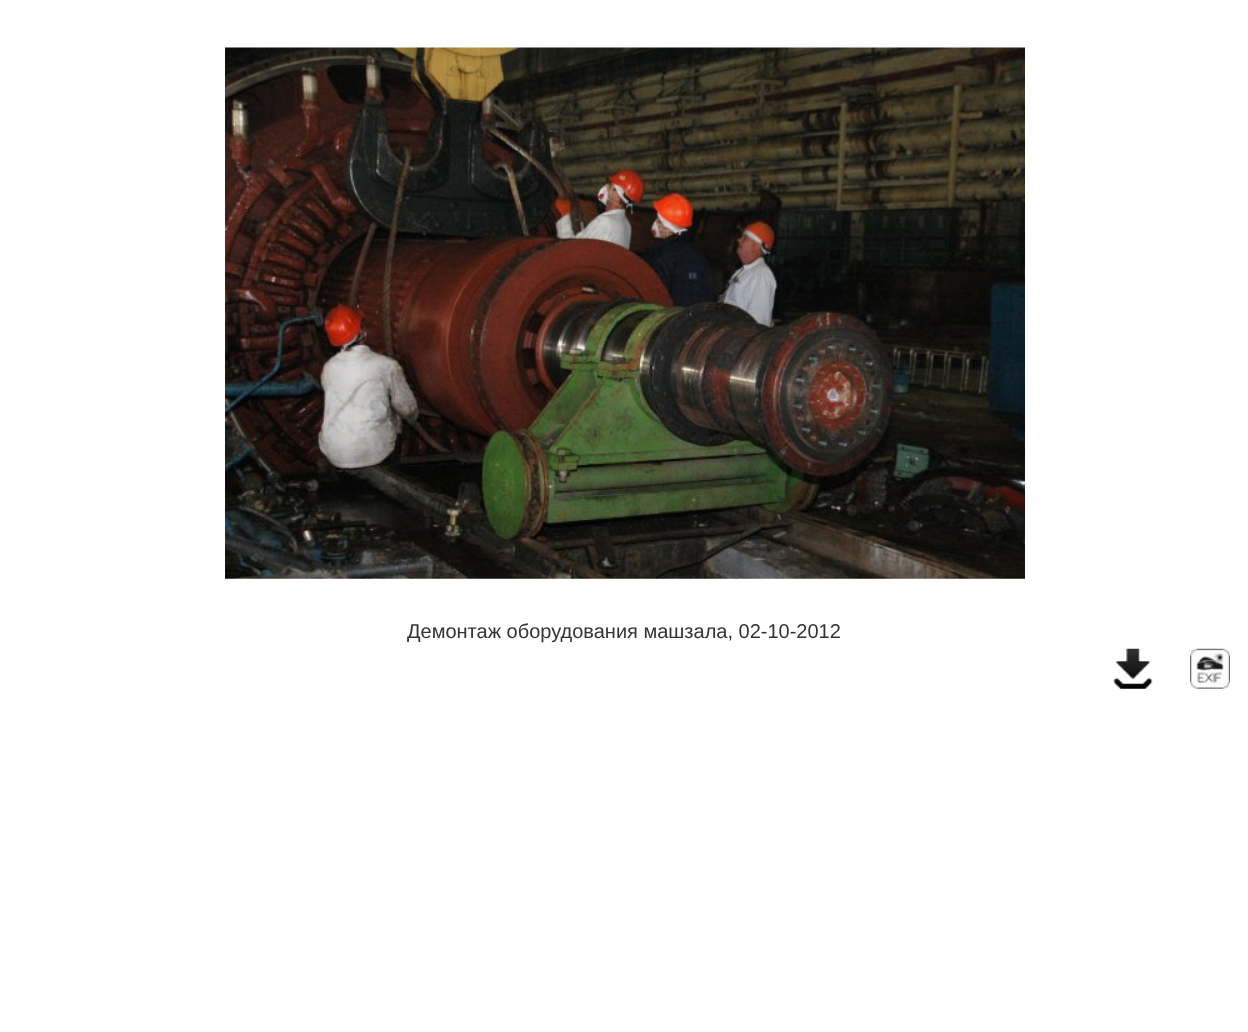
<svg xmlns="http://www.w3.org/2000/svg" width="1248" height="1032">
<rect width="100%" height="100%" fill="#fff"/>
<image x="225" y="47" width="800" height="532" href="media/1.png"/>
<text x="407" y="638" style="font-family:Liberation Sans;font-size:20px;fill:#333">Демонтаж оборудования машзала, 02-10-2012</text>
<image x="1113" y="648" width="40" height="41" href="media/2.png"/>
<image x="1190" y="648" width="40" height="41" href="media/3.png"/>
</svg>
